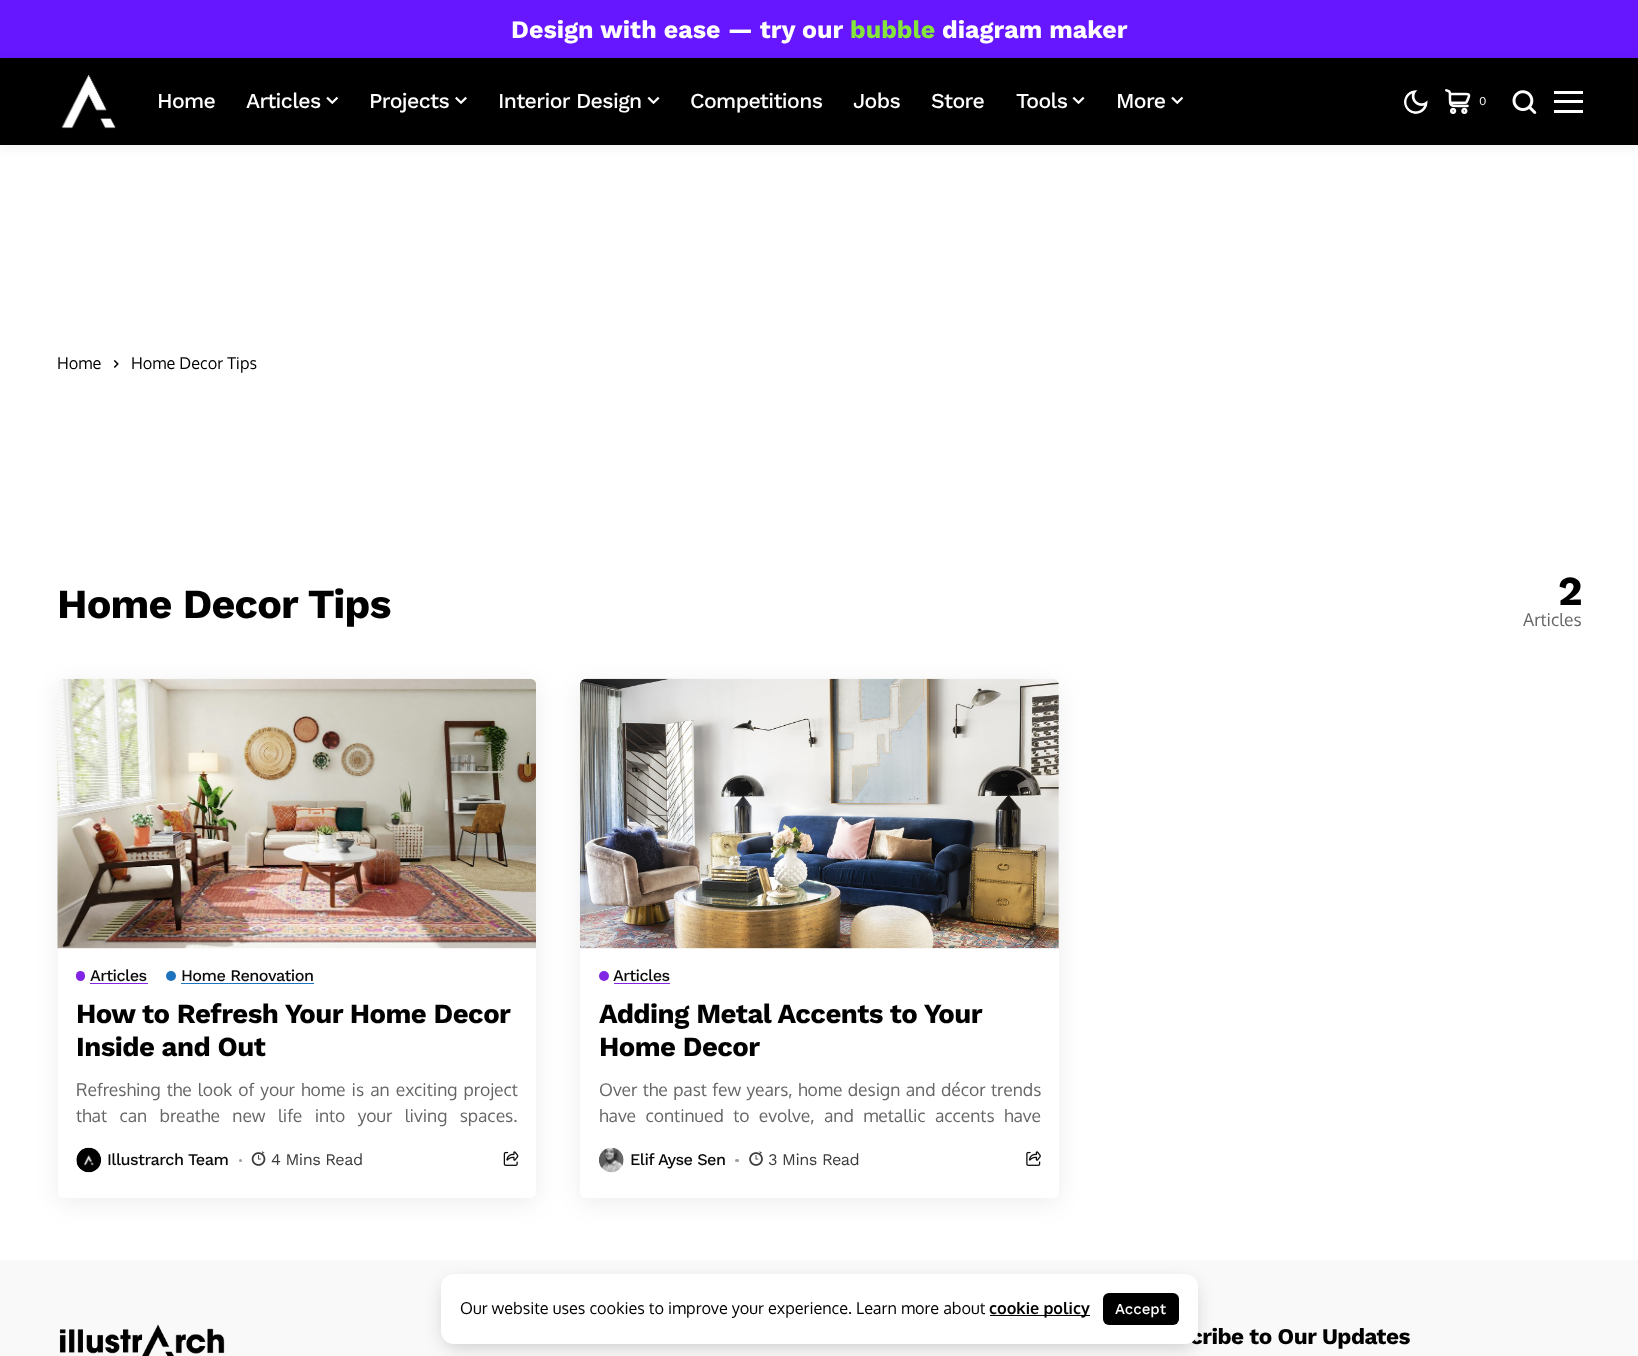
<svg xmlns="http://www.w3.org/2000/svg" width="1638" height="1356">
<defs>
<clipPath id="clip1"><path d="M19 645h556v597h-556zm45 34h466c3.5 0 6 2.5 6 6v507c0 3.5-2.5 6-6 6h-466c-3.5 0-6-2.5-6-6v-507c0-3.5 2.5-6 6-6z" clip-rule="evenodd"/></clipPath>
<clipPath id="clip2"><path d="M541 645h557v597h-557zm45 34h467c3.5 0 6 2.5 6 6v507c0 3.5-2.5 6-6 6h-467c-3.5 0-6-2.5-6-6v-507c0-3.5 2.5-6 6-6z" clip-rule="evenodd"/></clipPath>
</defs>
<rect width="100%" height="100%" fill="#fff"/>
<rect width="1638" height="58" fill="#6617ff"/>
<text x="511" y="38" style="font-family:Work Sans;font-size:25px;font-weight:bold;fill:#fff">Design with ease — try our</text>
<text x="850" y="38" style="font-family:Work Sans;font-size:25px;font-weight:bold;fill:#84e63b">bubble</text>
<text x="942" y="38" style="font-family:Work Sans;font-size:25px;font-weight:bold;fill:#fff">diagram maker</text>
<rect y="60" width="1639" height="88" fill="#0000000f" filter="blur(5.5px)"/>
<rect y="58" width="1638" height="87" fill="#000"/>
<image x="61" y="74" width="55" height="55" href="media/1.png"/>
<text x="157" y="108" style="font-family:Work Sans;font-size:21.25px;font-weight:500;letter-spacing:-0.6px;fill:#fff">Home</text>
<text x="246" y="108" style="font-family:Work Sans;font-size:21.25px;font-weight:500;letter-spacing:-0.6px;fill:#fff">Articles</text>
<image x="326" y="96" width="13" height="9" href="media/2.png"/>
<text x="369" y="108" style="font-family:Work Sans;font-size:21.25px;font-weight:500;letter-spacing:-0.6px;fill:#fff">Projects</text>
<image x="455" y="96" width="12" height="9" href="media/3.png"/>
<text x="498" y="108" style="font-family:Work Sans;font-size:21.25px;font-weight:500;letter-spacing:-0.6px;fill:#fff">Interior Design</text>
<image x="647" y="96" width="13" height="9" href="media/4.png"/>
<text x="690" y="108" style="font-family:Work Sans;font-size:21.25px;font-weight:500;letter-spacing:-0.6px;fill:#fff">Competitions</text>
<text x="853" y="108" style="font-family:Work Sans;font-size:21.25px;font-weight:500;letter-spacing:-0.6px;fill:#fff">Jobs</text>
<text x="931" y="108" style="font-family:Work Sans;font-size:21.25px;font-weight:500;letter-spacing:-0.6px;fill:#fff">Store</text>
<text x="1016" y="108" style="font-family:Work Sans;font-size:21.25px;font-weight:500;letter-spacing:-0.6px;fill:#fff">Tools</text>
<image x="1072" y="96" width="13" height="9" href="media/4.png"/>
<text x="1116" y="108" style="font-family:Work Sans;font-size:21.25px;font-weight:500;letter-spacing:-0.6px;fill:#fff">More</text>
<image x="1171" y="96" width="13" height="9" href="media/2.png"/>
<image x="1404" y="90" width="24" height="24" href="media/5.png"/>
<image x="1445" y="89" width="26" height="25" href="media/6.png"/>
<text x="1479" y="105" style="font-family:Work Sans;font-size:12px;fill:#fff">0</text>
<image x="1512" y="90" width="25" height="24" href="media/7.png"/>
<rect x="1554" y="91" width="29" height="3" fill="#fff"/>
<rect x="1554" y="100" width="29" height="3" fill="#fff"/>
<rect x="1554" y="110" width="29" height="3" fill="#fff"/>
<text x="57" y="369" style="font-family:Oxygen;font-size:16.25px;fill:#000">Home</text>
<image x="113" y="360" width="6" height="8" href="media/8.png"/>
<text x="131" y="369" style="font-family:Oxygen;font-size:16.25px;fill:#000">Home Decor Tips</text>
<text x="57" y="618" style="font-family:Work Sans;font-size:41.25px;font-weight:bold;letter-spacing:-0.8px;fill:#000">Home Decor Tips</text>
<text x="1558" y="605" style="font-family:Work Sans;font-size:41.25px;font-weight:bold;letter-spacing:-0.8px;fill:#000">2</text>
<text x="1523" y="626" style="font-family:Oxygen;font-size:17.5px;fill:#666">Articles</text>
<g clip-path="url(#clip1)">
<rect x="58" y="684" width="478" height="519" rx="6" fill="#00000012" filter="blur(12.5px)"/>
</g>
<image x="57" y="678" width="479" height="271" href="media/9.png"/>
<rect x="76" y="971" width="9" height="10" rx="4.5" fill="#8224e3"/>
<text x="90" y="981" style="font-family:Work Sans;font-size:16.25px;font-weight:500;letter-spacing:-0.5px;fill:#0a0a0a">Articles</text>
<rect x="90" y="983" width="58" height="1" fill="#8224e3"/>
<circle cx="171" cy="976" r="5" fill="#1e73be"/>
<text x="181" y="981" style="font-family:Work Sans;font-size:16.25px;font-weight:500;letter-spacing:-0.5px;fill:#0a0a0a">Home Renovation</text>
<rect x="181" y="983" width="133" height="1" fill="#1e73be"/>
<text x="76" y="1023" style="font-family:Work Sans;font-size:27.5px;font-weight:bold;letter-spacing:-0.55px;fill:#000">How to Refresh Your Home Decor</text>
<text x="76" y="1056" style="font-family:Work Sans;font-size:27.5px;font-weight:bold;letter-spacing:-0.55px;fill:#000">Inside and Out</text>
<text x="76" y="1096" word-spacing="1.75" style="font-family:Oxygen;font-size:17.5px;fill:#666">Refreshing the look of your home is an exciting project</text>
<text x="76" y="1122" word-spacing="8" style="font-family:Oxygen;font-size:17.5px;fill:#666">that can breathe new life into your living spaces.</text>
<image x="76" y="1147" width="25" height="26" href="media/10.png"/>
<text x="107" y="1165" style="font-family:Work Sans;font-size:16.25px;font-weight:500;letter-spacing:-0.5px;fill:#0a0a0a">Illustrarch Team</text>
<circle cx="240.5" cy="1160.5" r="1.5" fill="#9d9d9d"/>
<image x="251" y="1151" width="15" height="15" href="media/11.png"/>
<text x="271" y="1165" style="font-family:Work Sans;font-size:16.25px;letter-spacing:-0.5px;fill:#3b3b3b">4 Mins Read</text>
<image x="503" y="1151" width="16" height="15" href="media/12.png"/>
<g clip-path="url(#clip2)">
<rect x="580" y="684" width="479" height="519" rx="6" fill="#00000012" filter="blur(12.5px)"/>
</g>
<image x="580" y="678" width="479" height="271" href="media/13.png"/>
<circle cx="604" cy="976" r="5" fill="#8224e3"/>
<text x="613" y="981" style="font-family:Work Sans;font-size:16.25px;font-weight:500;letter-spacing:-0.5px;fill:#0a0a0a">Articles</text>
<rect x="614" y="983" width="56" height="1" fill="#8224e3"/>
<text x="599" y="1023" style="font-family:Work Sans;font-size:27.5px;font-weight:bold;letter-spacing:-0.55px;fill:#000">Adding Metal Accents to Your</text>
<text x="599" y="1056" style="font-family:Work Sans;font-size:27.5px;font-weight:bold;letter-spacing:-0.55px;fill:#000">Home Decor</text>
<text x="599" y="1096" word-spacing="1" style="font-family:Oxygen;font-size:17.5px;fill:#666">Over the past few years, home design and décor trends</text>
<text x="599" y="1122" word-spacing="5" style="font-family:Oxygen;font-size:17.5px;fill:#666">have continued to evolve, and metallic accents have</text>
<image x="599" y="1147" width="25" height="26" href="media/14.png"/>
<text x="630" y="1165" style="font-family:Work Sans;font-size:16.25px;font-weight:500;letter-spacing:-0.5px;fill:#0a0a0a">Elif Ayse Sen</text>
<rect x="735" y="1159" width="4" height="3" rx="1.5" fill="#9d9d9d"/>
<image x="749" y="1151" width="14" height="15" href="media/15.png"/>
<text x="768" y="1165" style="font-family:Work Sans;font-size:16.25px;letter-spacing:-0.5px;fill:#3b3b3b">3 Mins Read</text>
<image x="1026" y="1151" width="15" height="15" href="media/16.png"/>
<rect y="1260" width="1638" height="96" fill="#f9f9fa"/>
<image x="59" y="1324" width="166" height="32" href="media/17.png"/>
<text x="1190" y="1344" style="font-family:Work Sans;font-size:22.5px;font-weight:bold;letter-spacing:-0.5px;fill:#000">cribe to Our Updates</text>
<rect x="445" y="1284" width="749" height="62" rx="9" fill="#00000033" filter="blur(9.5px)"/>
<rect x="441" y="1274" width="757" height="70" rx="13" fill="#fff"/>
<text x="460" y="1314" style="font-family:Oxygen;font-size:16.25px;fill:#000">Our website uses cookies to improve your experience. Learn more about</text>
<rect x="990" y="1315" width="100" height="1" fill="#000"/>
<text x="989" y="1314" style="font-family:Oxygen;font-size:16.25px;font-weight:bold;fill:#000">cookie policy</text>
<rect x="1103" y="1293" width="76" height="32" rx="6" fill="#000"/>
<text x="1115" y="1314" style="font-family:Work Sans;font-size:15px;font-weight:500;fill:#fff">Accept</text>
</svg>
